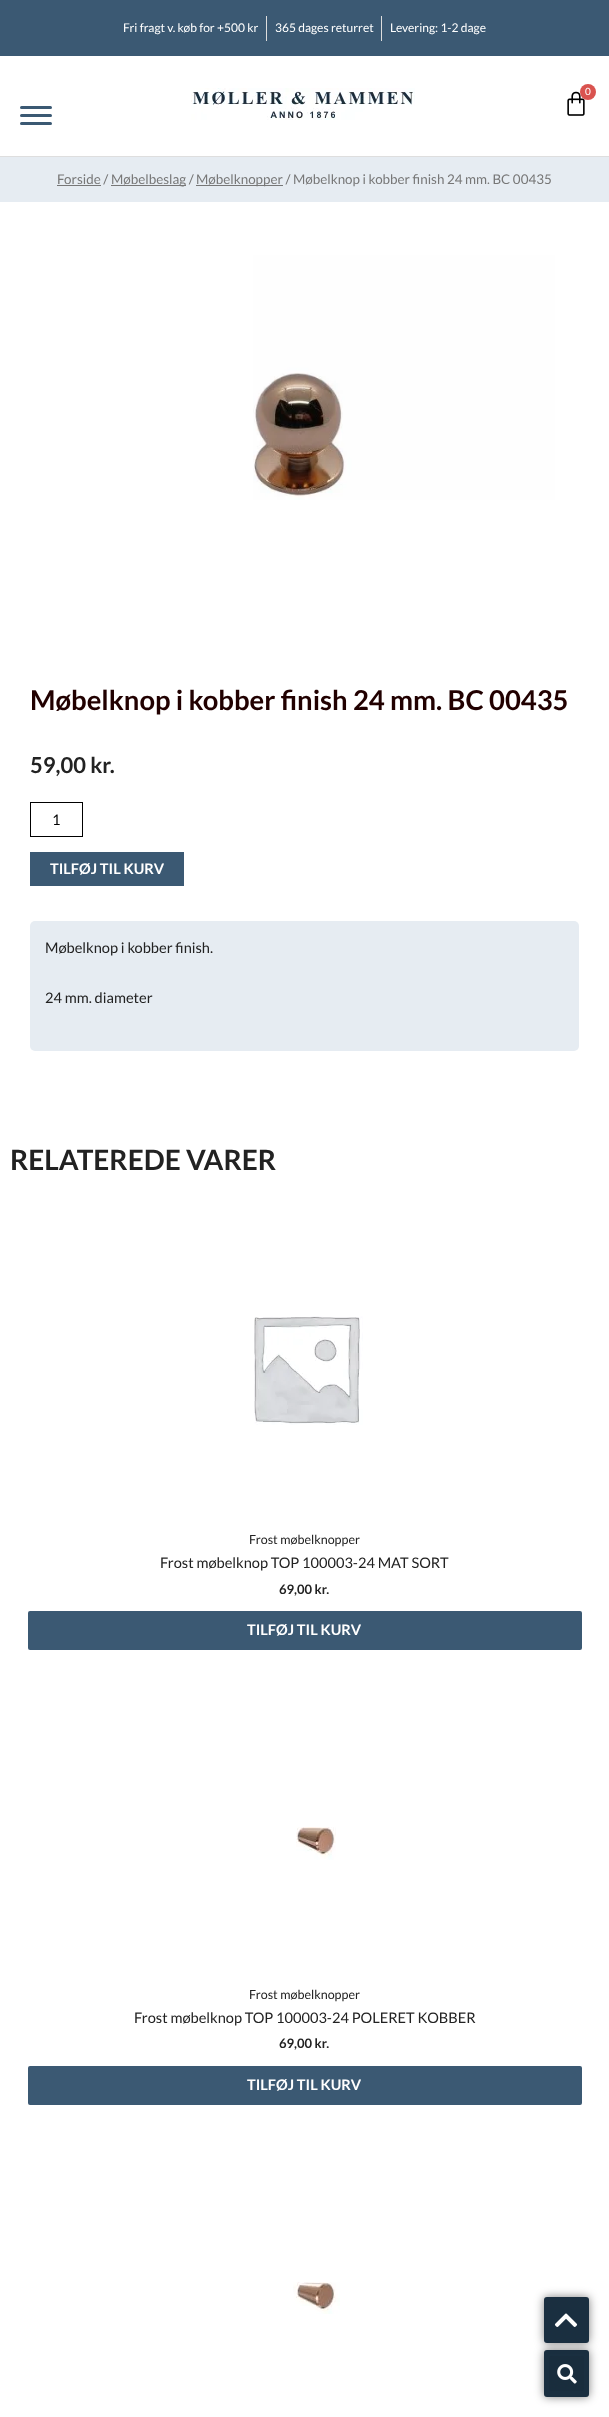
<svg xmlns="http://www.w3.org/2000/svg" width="609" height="2417">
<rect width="100%" height="100%" fill="#fff"/>
<rect width="609" height="56" fill="#3b5973"/>
<text x="123" y="32" style="font-family:Lato;font-size:12px;fill:#fff">Fri fragt v. køb for +500 kr</text>
<rect x="266" y="16" width="1" height="25" fill="#ddd"/>
<text x="275" y="32" style="font-family:Lato;font-size:12px;fill:#fff">365 dages returret</text>
<rect x="381" y="16" width="1" height="25" fill="#ddd"/>
<text x="390" y="32" style="font-family:Lato;font-size:12px;fill:#fff">Levering: 1-2 dage</text>
<rect y="156" width="609" height="1" fill="#dedede"/>
<rect x="20" y="106" width="32" height="3" rx="1.5" fill="#3b5973"/>
<rect x="20" y="114" width="32" height="3" rx="1.5" fill="#3b5973"/>
<rect x="20" y="122" width="32" height="3" rx="1.5" fill="#3b5973"/>
<image x="191" y="88" width="224" height="32" href="media/1.png"/>
<image x="567" y="91" width="18" height="25" href="media/2.png"/>
<circle cx="588" cy="92" r="8" fill="#d9534f"/>
<text x="585" y="95" style="font-family:Lato;font-size:10px;fill:#fff">0</text>
<rect y="157" width="609" height="45" fill="#e6ecf2"/>
<text x="57" y="184" style="font-family:Lato;font-size:13.4px;fill:#777">Forside /</text>
<rect x="57" y="185" width="44" height="1" fill="#777"/>
<rect x="111" y="185" width="75" height="1" fill="#777"/>
<text x="111" y="184" style="font-family:Lato;font-size:13.4px;fill:#777">Møbelbeslag /</text>
<rect x="196" y="185" width="87" height="1" fill="#777"/>
<text x="196" y="184" style="font-family:Lato;font-size:13.4px;fill:#777">Møbelknopper / Møbelknop i kobber finish 24 mm. BC 00435</text>
<image x="253" y="255" width="302" height="245" href="media/3.png"/>
<text x="30" y="710" style="font-family:Lato;font-size:27.4px;font-weight:bold;fill:#210000">Møbelknop i kobber finish 24 mm. BC 00435</text>
<text x="30" y="773" style="font-family:Lato;font-size:22px;font-weight:bold;fill:#222">59,00 kr.</text>
<rect x="30.5" y="802.5" width="52" height="34" fill="none" stroke="#000"/>
<text x="52" y="825" style="font-family:Lato;font-size:14.6px;fill:#000">1</text>
<rect x="30" y="852" width="154" height="34" fill="#3b5973"/>
<text x="50" y="874" style="font-family:Lato;font-size:14.6px;font-weight:bold;fill:#fff">TILFØJ TIL KURV</text>
<rect x="30" y="921" width="549" height="130" rx="5" fill="#e6ecf2"/>
<text x="45" y="953" style="font-family:Lato;font-size:14.6px;fill:#222">Møbelknop i kobber finish.</text>
<text x="45" y="1003" style="font-family:Lato;font-size:14.6px;fill:#222">24 mm. diameter</text>
<text x="10" y="1170" style="font-family:Lato;font-size:28px;font-weight:bold;fill:#222">RELATEREDE VARER</text>
<image x="254" y="1316" width="109" height="109" href="media/4.png"/>
<text x="249" y="1544" style="font-family:Lato;font-size:12.5px;fill:#222">Frost møbelknopper</text>
<text x="160" y="1568" style="font-family:Lato;font-size:14.6px;fill:#222">Frost møbelknop TOP 100003-24 MAT SORT</text>
<text x="279" y="1594" style="font-family:Lato;font-size:13px;font-weight:bold;fill:#222">69,00 kr.</text>
<rect x="28" y="1611" width="554" height="39" rx="2" fill="#3b5973"/>
<text x="247" y="1635" style="font-family:Lato;font-size:14.6px;font-weight:bold;fill:#fff">TILFØJ TIL KURV</text>
<image x="296" y="1827" width="40" height="33" href="media/5.png"/>
<text x="249" y="1999" style="font-family:Lato;font-size:12.5px;fill:#222">Frost møbelknopper</text>
<text x="134" y="2023" style="font-family:Lato;font-size:14.6px;fill:#222">Frost møbelknop TOP 100003-24 POLERET KOBBER</text>
<text x="279" y="2048" style="font-family:Lato;font-size:13px;font-weight:bold;fill:#222">69,00 kr.</text>
<rect x="28" y="2066" width="554" height="39" rx="2" fill="#3b5973"/>
<text x="247" y="2090" style="font-family:Lato;font-size:14.6px;font-weight:bold;fill:#fff">TILFØJ TIL KURV</text>
<image x="293" y="2282" width="47" height="32" href="media/6.png"/>
<rect x="544" y="2350" width="45" height="47" rx="3" fill="#00000080" filter="blur(5px)"/>
<rect x="544" y="2350" width="45" height="47" rx="3" fill="#1a2f40"/>
<rect x="549" y="2356" width="35" height="35" rx="3" fill="#192d3d"/>
<rect x="544" y="2297" width="45" height="46" rx="3" fill="#00000080" filter="blur(5px)"/>
<rect x="544" y="2297" width="45" height="46" rx="3" fill="#1a2f40"/>
<image x="554" y="2313" width="24" height="14" href="media/7.png"/>
<image x="557" y="2364" width="20" height="20" href="media/8.png"/>
</svg>
